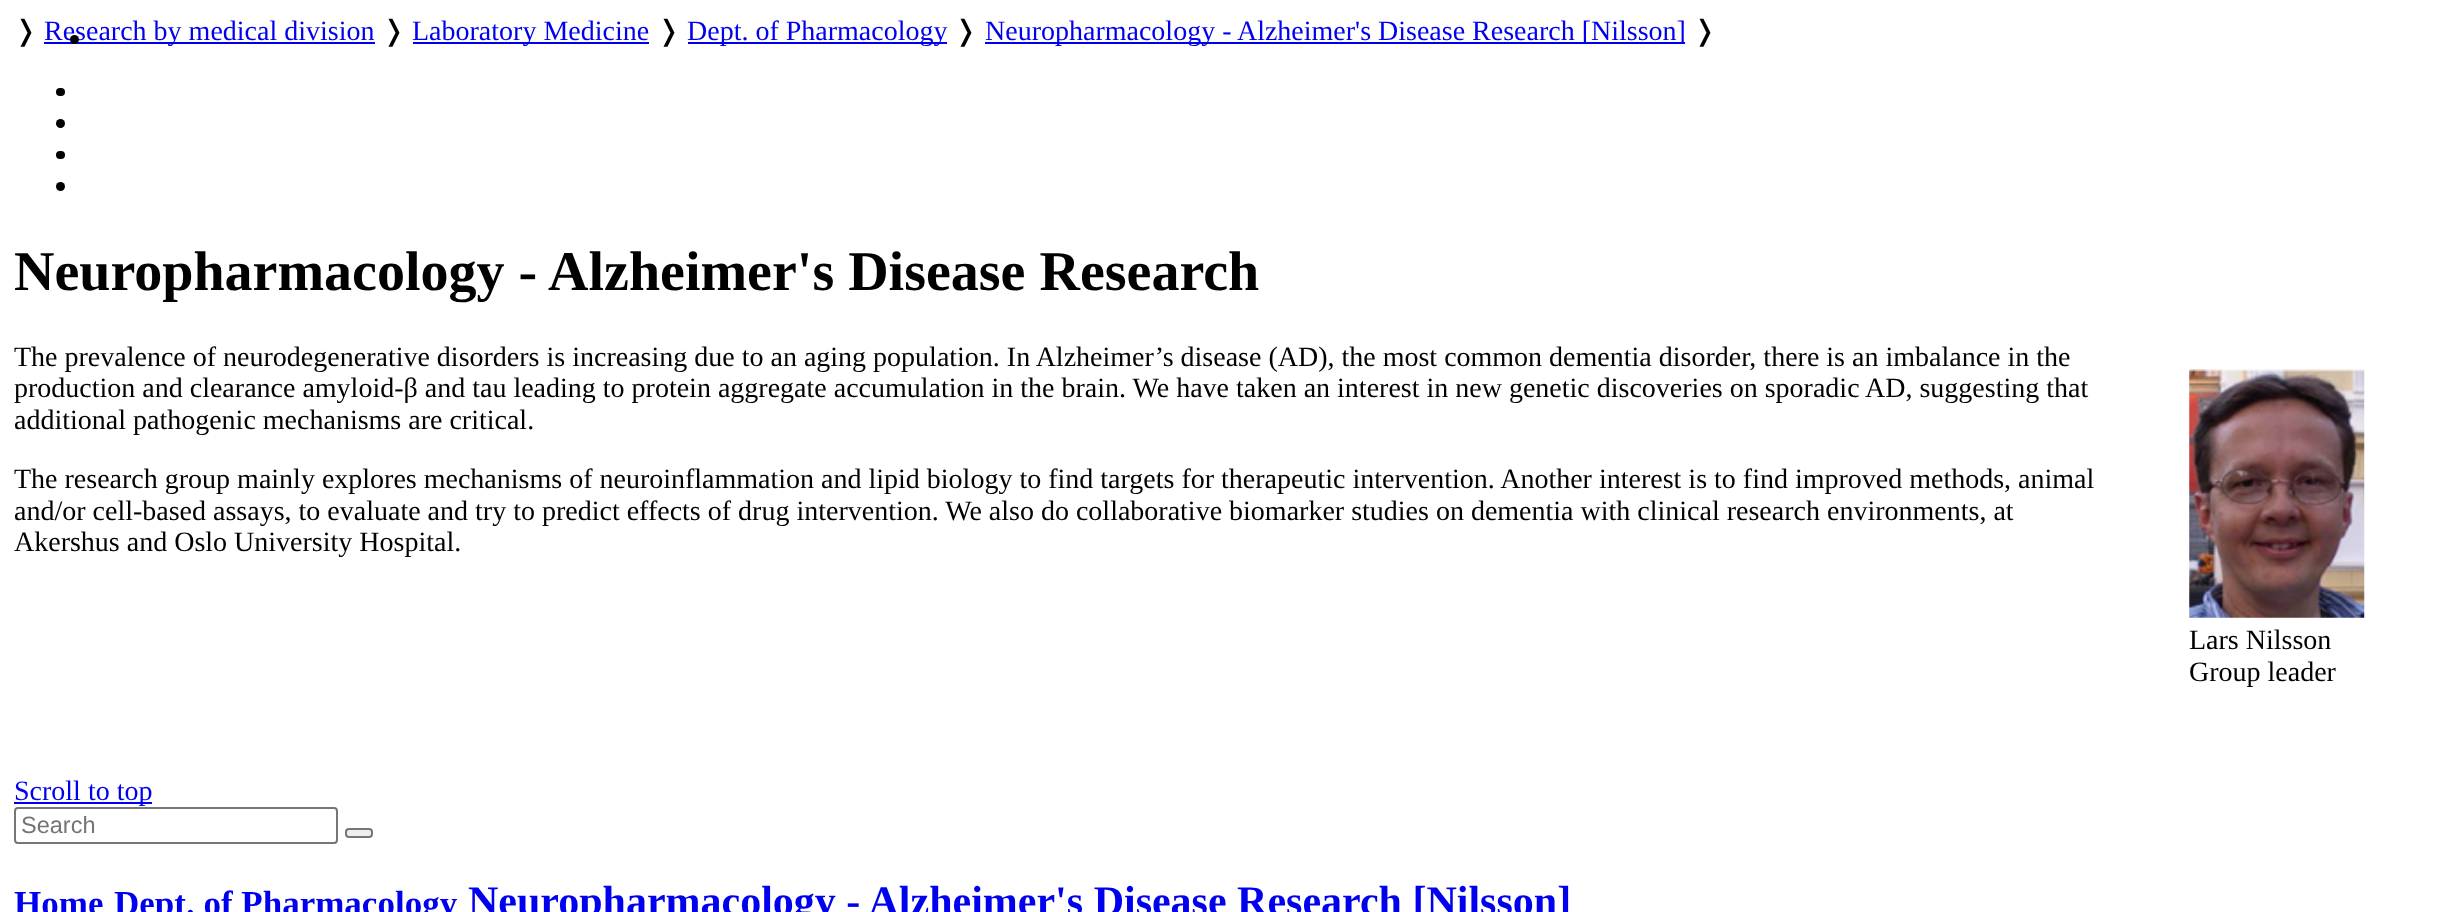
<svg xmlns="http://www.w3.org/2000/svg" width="2447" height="912">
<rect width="100%" height="100%" fill="#fff"/>
<text x="14" y="40" style="font-family:DejaVu Sans;font-size:28px;fill:#000">❭</text>
<rect x="44" y="42" width="331" height="2" fill="#00e"/>
<text x="44" y="40" style="font-family:Liberation Serif;font-size:28px;fill:#00e">Research by medical division</text>
<text x="382" y="40" style="font-family:DejaVu Sans;font-size:28px;fill:#000">❭</text>
<rect x="413" y="42" width="236" height="2" fill="#00e"/>
<text x="412" y="40" style="font-family:Liberation Serif;font-size:28px;fill:#00e">Laboratory Medicine</text>
<text x="657" y="40" style="font-family:DejaVu Sans;font-size:28px;fill:#000">❭</text>
<rect x="688" y="42" width="259" height="2" fill="#00e"/>
<text x="687" y="40" style="font-family:Liberation Serif;font-size:28px;fill:#00e">Dept. of Pharmacology</text>
<text x="954" y="40" style="font-family:DejaVu Sans;font-size:28px;fill:#000">❭</text>
<rect x="985" y="42" width="700" height="2" fill="#00e"/>
<text x="985" y="40" style="font-family:Liberation Serif;font-size:28px;fill:#00e">Neuropharmacology - Alzheimer's Disease Research [Nilsson]</text>
<text x="1693" y="40" style="font-family:DejaVu Sans;font-size:28px;fill:#000">❭</text>
<rect x="56" y="88" width="9" height="8" rx="4" fill="#000"/>
<circle cx="60.5" cy="123.5" r="4.5" fill="#000"/>
<rect x="56" y="151" width="9" height="8" rx="4" fill="#000"/>
<circle cx="60.5" cy="186.5" r="4.5" fill="#000"/>
<text x="14" y="290" style="font-family:Liberation Serif;font-size:56px;font-weight:bold;fill:#000">Neuropharmacology - Alzheimer's Disease Research</text>
<text x="14" y="366" style="font-family:Liberation Serif;font-size:28px;fill:#000">The prevalence of neurodegenerative disorders is increasing due to an aging population. In Alzheimer’s disease (AD), the most common dementia disorder, there is an imbalance in the</text>
<text x="14" y="397" style="font-family:Liberation Serif;font-size:28px;fill:#000">production and clearance amyloid-β and tau leading to protein aggregate accumulation in the brain. We have taken an interest in new genetic discoveries on sporadic AD, suggesting that</text>
<text x="14" y="429" style="font-family:Liberation Serif;font-size:28px;fill:#000">additional pathogenic mechanisms are critical.</text>
<text x="14" y="488" style="font-family:Liberation Serif;font-size:28px;fill:#000">The research group mainly explores mechanisms of neuroinflammation and lipid biology to find targets for therapeutic intervention. Another interest is to find improved methods, animal</text>
<text x="14" y="520" style="font-family:Liberation Serif;font-size:28px;fill:#000">and/or cell-based assays, to evaluate and try to predict effects of drug intervention. We also do collaborative biomarker studies on dementia with clinical research environments, at</text>
<text x="14" y="551" style="font-family:Liberation Serif;font-size:28px;fill:#000">Akershus and Oslo University Hospital.</text>
<image x="2189" y="369" width="176" height="249" href="media/1.png"/>
<text x="2189" y="649" style="font-family:Liberation Serif;font-size:28px;fill:#000">Lars Nilsson</text>
<text x="2189" y="681" style="font-family:Liberation Serif;font-size:28px;fill:#000">Group leader</text>
<rect x="14" y="802" width="138" height="2" fill="#00e"/>
<text x="14" y="800" style="font-family:Liberation Serif;font-size:28px;fill:#00e">Scroll to top</text>
<circle cx="74.5" cy="39.5" r="4.5" fill="#000"/>
<rect x="15" y="808" width="322" height="35" rx="3" fill="none" stroke="#767676" stroke-width="2"/>
<text x="21" y="833" style="font-family:Liberation Sans;font-size:23.5px;fill:#757575">Search</text>
<rect x="346" y="829" width="26" height="8" rx="3" fill="#efefef" stroke="#767676" stroke-width="2"/>
<text x="14" y="915" style="font-family:Liberation Serif;font-size:35px;font-weight:bold;fill:#00e">Home</text>
<text x="114" y="915" style="font-family:Liberation Serif;font-size:35px;font-weight:bold;fill:#00e">Dept. of Pharmacology</text>
<text x="468" y="915" style="font-family:Liberation Serif;font-size:42px;font-weight:bold;fill:#00e">Neuropharmacology - Alzheimer's Disease Research [Nilsson]</text>
</svg>
